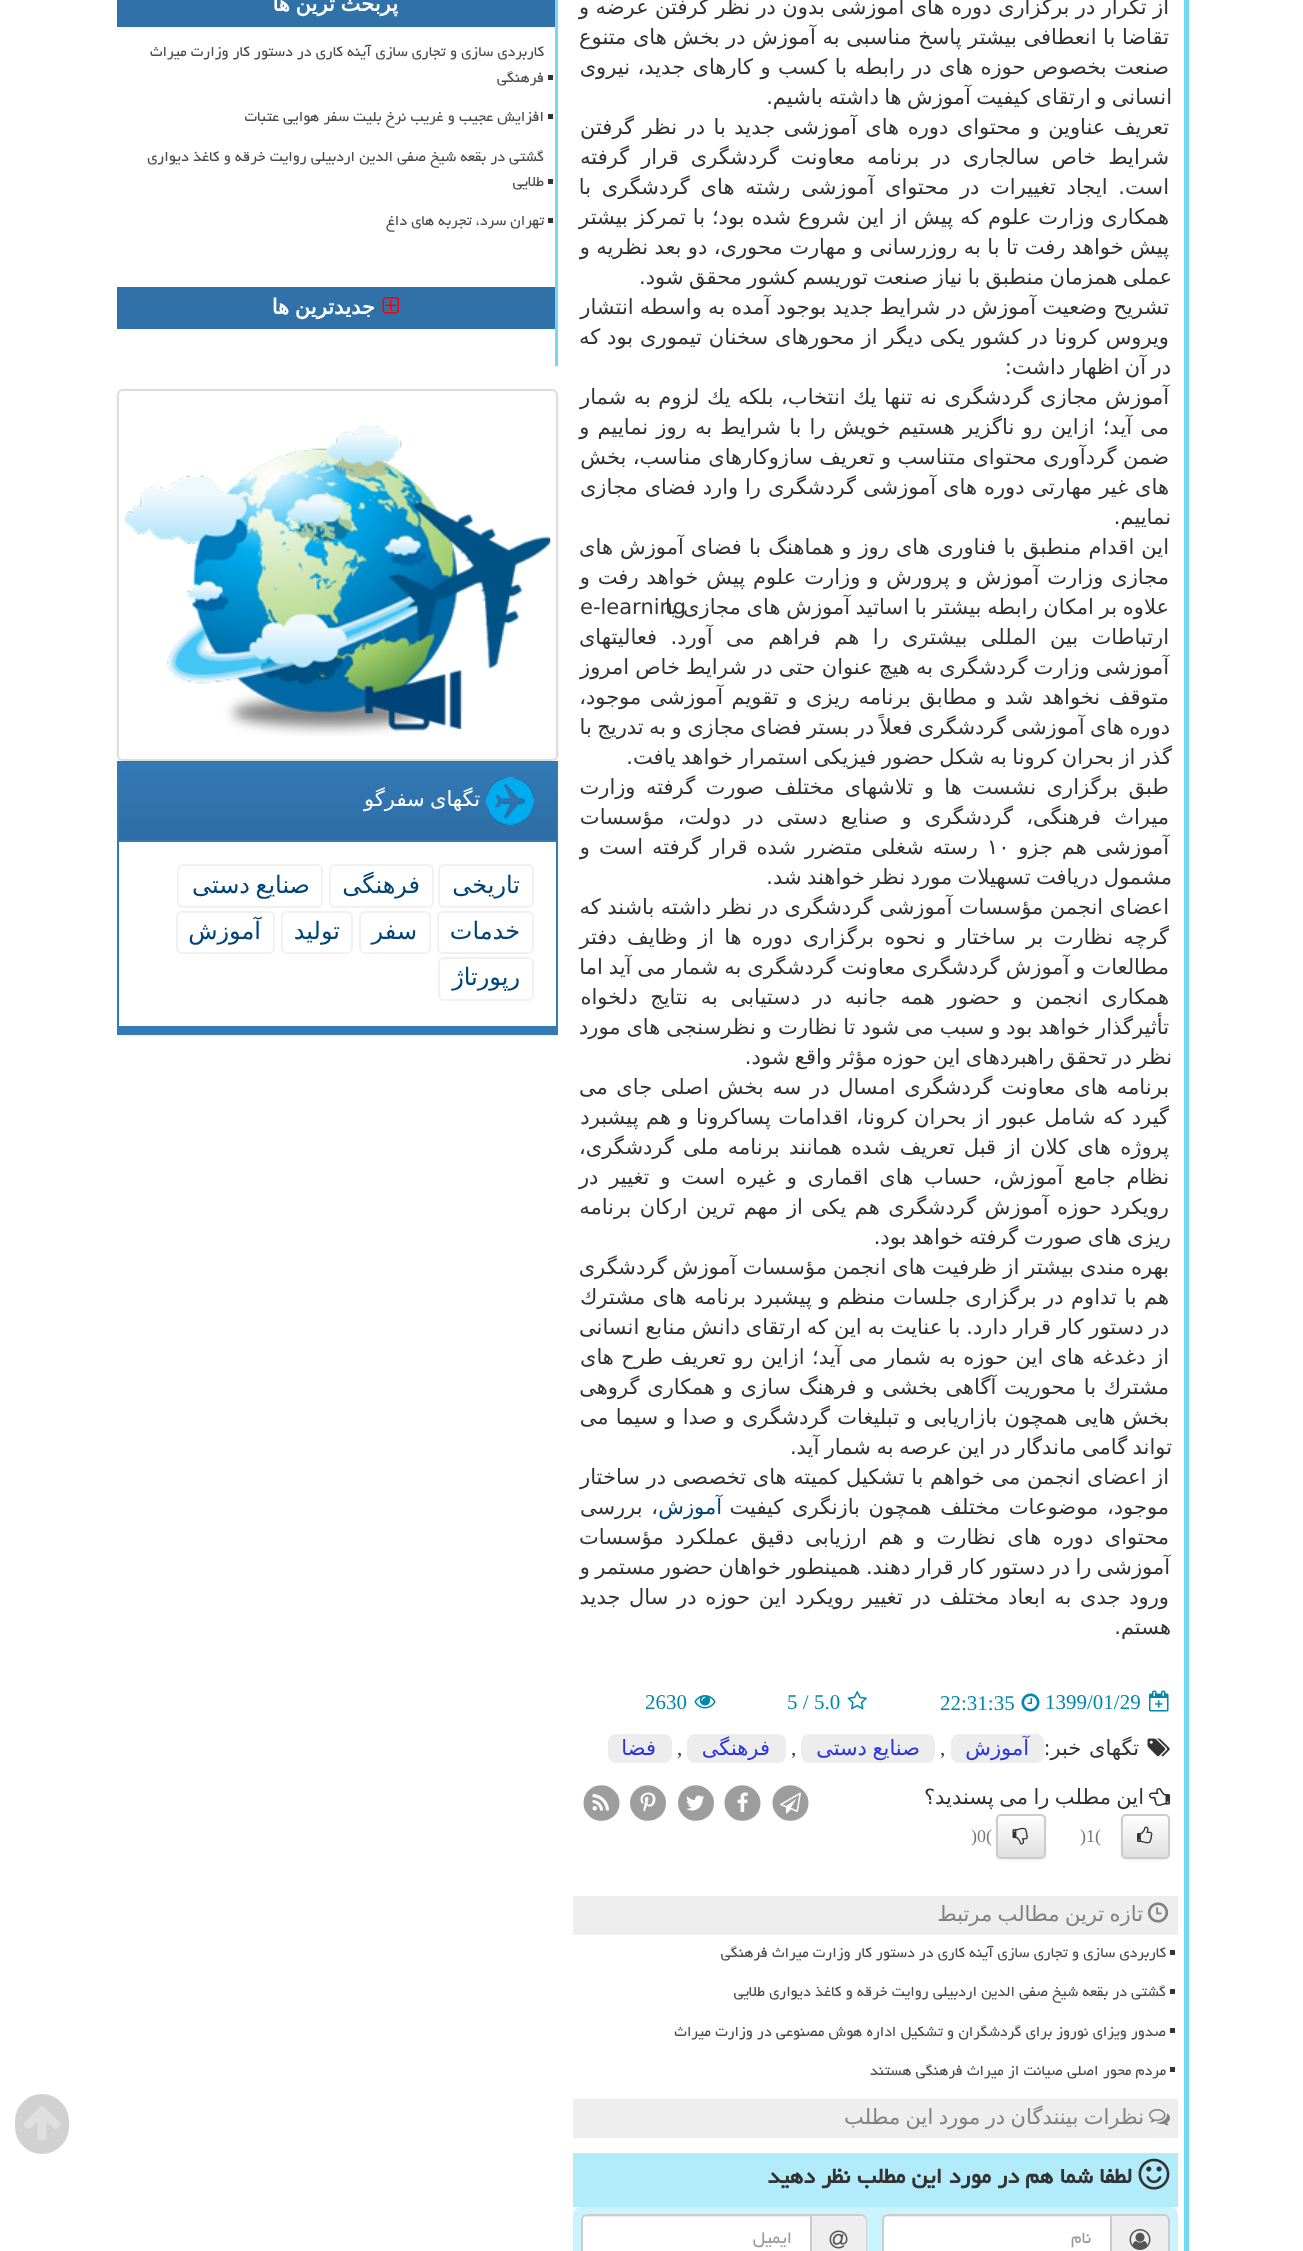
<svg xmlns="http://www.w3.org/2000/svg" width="1303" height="2251">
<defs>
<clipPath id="clip1"><rect x="1121" y="1814" width="49" height="45" rx="5"/></clipPath>
<linearGradient id="g1" gradientUnits="userSpaceOnUse" x1="1145" y1="1815" x2="1145" y2="1857"><stop offset="0" stop-color="#fff"/><stop offset="1" stop-color="#e0e0e0"/></linearGradient>
<clipPath id="clip2"><rect x="996" y="1814" width="50" height="45" rx="5"/></clipPath>
<linearGradient id="g2" gradientUnits="userSpaceOnUse" x1="1021" y1="1815" x2="1021" y2="1857"><stop offset="0" stop-color="#fff"/><stop offset="1" stop-color="#e0e0e0"/></linearGradient>
<clipPath id="clip3"><rect x="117" y="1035" width="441" height="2"/></clipPath>
<linearGradient id="g3" gradientUnits="userSpaceOnUse" x1="338" y1="762" x2="338" y2="840"><stop offset="0" stop-color="#337ab7"/><stop offset="1" stop-color="#2e6da4"/></linearGradient>
</defs>
<rect width="100%" height="100%" fill="#fff"/>
<rect x="1184" width="5" height="2251" fill="#71d9f3"/>
<text x="1169" y="14" word-spacing="-0.3" style="font-family:DejaVu Sans;font-size:21px;direction:rtl;fill:#333">از تكرار در برگزاری دوره های آموزشی بدون در نظر گرفتن عرضه و</text>
<text x="1169" y="44" word-spacing="-0.1" style="font-family:DejaVu Sans;font-size:21px;direction:rtl;fill:#333">تقاضا با انعطافی بیشتر پاسخ مناسبی به آموزش در بخش های متنوع</text>
<text x="1169" y="74" word-spacing="0.75" style="font-family:DejaVu Sans;font-size:21px;direction:rtl;fill:#333">صنعت بخصوص حوزه های در رابطه با كسب و كارهای جدید، نیروی</text>
<text x="1172" y="104" word-spacing="-1.25" style="font-family:DejaVu Sans;font-size:21px;direction:rtl;fill:#333">انسانی و ارتقای كیفیت آموزش ها داشته باشیم.</text>
<text x="1169" y="134" word-spacing="1.8" style="font-family:DejaVu Sans;font-size:21px;direction:rtl;fill:#333">تعریف عناوین و محتوای دوره های آموزشی جدید با در نظر گرفتن</text>
<text x="1169" y="164" word-spacing="5.25" style="font-family:DejaVu Sans;font-size:21px;direction:rtl;fill:#333">شرایط خاص سالجاری در برنامه معاونت گردشگری قرار گرفته</text>
<text x="1169" y="194" word-spacing="4" style="font-family:DejaVu Sans;font-size:21px;direction:rtl;fill:#333">است. ایجاد تغییرات در محتوای آموزشی رشته های گردشگری با</text>
<text x="1169" y="224" word-spacing="0.2" style="font-family:DejaVu Sans;font-size:21px;direction:rtl;fill:#333">همكاری وزارت علوم كه پیش از این شروع شده بود؛ با تمركز بیشتر</text>
<text x="1169" y="254" word-spacing="-0.25" style="font-family:DejaVu Sans;font-size:21px;direction:rtl;fill:#333">پیش خواهد رفت تا با به روزرسانی و مهارت محوری، دو بعد نظریه و</text>
<text x="1172" y="284" word-spacing="-1.25" style="font-family:DejaVu Sans;font-size:21px;direction:rtl;fill:#333">عملی همزمان منطبق با نیاز صنعت توریسم كشور محقق شود.</text>
<text x="1169" y="314" word-spacing="-0.5" style="font-family:DejaVu Sans;font-size:21px;direction:rtl;fill:#333">تشریح وضعیت آموزش در شرایط جدید بوجود آمده به واسطه انتشار</text>
<text x="1169" y="344" word-spacing="0.25" style="font-family:DejaVu Sans;font-size:21px;direction:rtl;fill:#333">ویروس كرونا در كشور یكی دیگر از محورهای سخنان تیموری بود كه</text>
<text x="1171" y="374" word-spacing="-1.25" style="font-family:DejaVu Sans;font-size:21px;direction:rtl;fill:#333">در آن اظهار داشت:</text>
<text x="1169" y="404" word-spacing="0.8" style="font-family:DejaVu Sans;font-size:21px;direction:rtl;fill:#333">آموزش مجازی گردشگری نه تنها یك انتخاب، بلكه یك لزوم به شمار</text>
<text x="1169" y="434" word-spacing="1.5" style="font-family:DejaVu Sans;font-size:21px;direction:rtl;fill:#333">می آید؛ ازاین رو ناگزیر هستیم خویش را با شرایط به روز نماییم و</text>
<text x="1169" y="464" word-spacing="-0.25" style="font-family:DejaVu Sans;font-size:21px;direction:rtl;fill:#333">ضمن گردآوری محتوای متناسب و تعریف سازوكارهای مناسب، بخش</text>
<text x="1169" y="494" word-spacing="0.25" style="font-family:DejaVu Sans;font-size:21px;direction:rtl;fill:#333">های غیر مهارتی دوره های آموزشی گردشگری را وارد فضای مجازی</text>
<text x="1171" y="524" style="font-family:DejaVu Sans;font-size:21px;direction:rtl;fill:#333">نماییم.</text>
<text x="1169" y="554" word-spacing="0.4" style="font-family:DejaVu Sans;font-size:21px;direction:rtl;fill:#333">این اقدام منطبق با فناوری های روز و هماهنگ با فضای آموزش های</text>
<text x="1169" y="584" word-spacing="1.25" style="font-family:DejaVu Sans;font-size:21px;direction:rtl;fill:#333">مجازی وزارت آموزش و پرورش و وزارت علوم پیش خواهد رفت و</text>
<text x="580" y="614" style="font-family:DejaVu Sans;font-size:21px;fill:#333">e-learning</text>
<text x="1169" y="614" word-spacing="-0.9" style="font-family:DejaVu Sans;font-size:21px;direction:rtl;fill:#333">علاوه بر امكان رابطه بیشتر با اساتید آموزش های مجازی یا</text>
<text x="1169" y="644" word-spacing="6.75" style="font-family:DejaVu Sans;font-size:21px;direction:rtl;fill:#333">ارتباطات بین المللی بیشتری را هم فراهم می آورد. فعالیتهای</text>
<text x="1169" y="674" word-spacing="-0.5" style="font-family:DejaVu Sans;font-size:21px;direction:rtl;fill:#333">آموزشی وزارت گردشگری به هیچ عنوان حتی در شرایط خاص امروز</text>
<text x="1169" y="704" word-spacing="1.9" style="font-family:DejaVu Sans;font-size:21px;direction:rtl;fill:#333">متوقف نخواهد شد و مطابق برنامه ریزی و تقویم آموزشی موجود،</text>
<text x="1170" y="734" word-spacing="-1.25" style="font-family:DejaVu Sans;font-size:21px;direction:rtl;fill:#333">دوره های آموزشی گردشگری فعلاً در بستر فضای مجازی و به تدریج با</text>
<text x="1172" y="764" word-spacing="-1.25" style="font-family:DejaVu Sans;font-size:21px;direction:rtl;fill:#333">گذر از بحران كرونا به شكل حضور فیزیكی استمرار خواهد یافت.</text>
<text x="1169" y="794" word-spacing="3.75" style="font-family:DejaVu Sans;font-size:21px;direction:rtl;fill:#333">طبق برگزاری نشست ها و تلاشهای مختلف صورت گرفته وزارت</text>
<text x="1169" y="824" word-spacing="6.5" style="font-family:DejaVu Sans;font-size:21px;direction:rtl;fill:#333">میراث فرهنگی، گردشگری و صنایع دستی در دولت، مؤسسات</text>
<text x="1169" y="854" word-spacing="2.25" style="font-family:DejaVu Sans;font-size:21px;direction:rtl;fill:#333">آموزشی هم جزو</text>
<text x="987" y="854" style="font-family:DejaVu Sans;font-size:21px;fill:#333">۱۰</text>
<text x="978" y="854" word-spacing="2.25" style="font-family:DejaVu Sans;font-size:21px;direction:rtl;fill:#333">رسته شغلی متضرر شده قرار گرفته است و</text>
<text x="1172" y="884" word-spacing="-1.25" style="font-family:DejaVu Sans;font-size:21px;direction:rtl;fill:#333">مشمول دریافت تسهیلات مورد نظر خواهند شد.</text>
<text x="1169" y="914" word-spacing="-0.25" style="font-family:DejaVu Sans;font-size:21px;direction:rtl;fill:#333">اعضای انجمن مؤسسات آموزشی گردشگری در نظر داشته باشند كه</text>
<text x="1169" y="944" word-spacing="3.5" style="font-family:DejaVu Sans;font-size:21px;direction:rtl;fill:#333">گرچه نظارت بر ساختار و نحوه برگزاری دوره ها از وظایف دفتر</text>
<text x="1169" y="974" word-spacing="-0.75" style="font-family:DejaVu Sans;font-size:21px;direction:rtl;fill:#333">مطالعات و آموزش گردشگری معاونت گردشگری به شمار می آید اما</text>
<text x="1169" y="1004" word-spacing="6" style="font-family:DejaVu Sans;font-size:21px;direction:rtl;fill:#333">همكاری انجمن و حضور همه جانبه در دستیابی به نتایج دلخواه</text>
<text x="1169" y="1034" word-spacing="-0.75" style="font-family:DejaVu Sans;font-size:21px;direction:rtl;fill:#333">تأثیرگذار خواهد بود و سبب می شود تا نظارت و نظرسنجی های مورد</text>
<text x="1172" y="1064" word-spacing="-1.25" style="font-family:DejaVu Sans;font-size:21px;direction:rtl;fill:#333">نظر در تحقق راهبردهای این حوزه مؤثر واقع شود.</text>
<text x="1169" y="1094" word-spacing="2" style="font-family:DejaVu Sans;font-size:21px;direction:rtl;fill:#333">برنامه های معاونت گردشگری امسال در سه بخش اصلی جای می</text>
<text x="1169" y="1124" word-spacing="0.75" style="font-family:DejaVu Sans;font-size:21px;direction:rtl;fill:#333">گیرد كه شامل عبور از بحران كرونا، اقدامات پساكرونا و هم پیشبرد</text>
<text x="1169" y="1154" word-spacing="2.4" style="font-family:DejaVu Sans;font-size:21px;direction:rtl;fill:#333">پروژه های كلان از قبل تعریف شده همانند برنامه ملی گردشگری،</text>
<text x="1169" y="1184" word-spacing="4.1" style="font-family:DejaVu Sans;font-size:21px;direction:rtl;fill:#333">نظام جامع آموزش، حساب های اقماری و غیره است و تغییر در</text>
<text x="1169" y="1214" word-spacing="1.75" style="font-family:DejaVu Sans;font-size:21px;direction:rtl;fill:#333">رویكرد حوزه آموزش گردشگری هم یكی از مهم ترین اركان برنامه</text>
<text x="1171" y="1244" word-spacing="-1.25" style="font-family:DejaVu Sans;font-size:21px;direction:rtl;fill:#333">ریزی های صورت گرفته خواهد بود.</text>
<text x="1169" y="1274" word-spacing="-0.75" style="font-family:DejaVu Sans;font-size:21px;direction:rtl;fill:#333">بهره مندی بیشتر از ظرفیت های انجمن مؤسسات آموزش گردشگری</text>
<text x="1169" y="1304" word-spacing="0.75" style="font-family:DejaVu Sans;font-size:21px;direction:rtl;fill:#333">هم با تداوم در برگزاری جلسات منظم و پیشبرد برنامه های مشترك</text>
<text x="1169" y="1334" word-spacing="-0.8" style="font-family:DejaVu Sans;font-size:21px;direction:rtl;fill:#333">در دستور كار قرار دارد. با عنایت به این كه ارتقای دانش منابع انسانی</text>
<text x="1169" y="1364" word-spacing="0.75" style="font-family:DejaVu Sans;font-size:21px;direction:rtl;fill:#333">از دغدغه های این حوزه به شمار می آید؛ ازاین رو تعریف طرح های</text>
<text x="1169" y="1394" word-spacing="1" style="font-family:DejaVu Sans;font-size:21px;direction:rtl;fill:#333">مشترك با محوریت آگاهی بخشی و فرهنگ سازی و همكاری گروهی</text>
<text x="1169" y="1424" word-spacing="0.5" style="font-family:DejaVu Sans;font-size:21px;direction:rtl;fill:#333">بخش هایی همچون بازاریابی و تبلیغات گردشگری و صدا و سیما می</text>
<text x="1172" y="1454" word-spacing="-1.25" style="font-family:DejaVu Sans;font-size:21px;direction:rtl;fill:#333">تواند گامی ماندگار در این عرصه به شمار آید.</text>
<text x="1169" y="1484" style="font-family:DejaVu Sans;font-size:21px;direction:rtl;fill:#333">از اعضای انجمن می خواهم با تشكیل كمیته های تخصصی در ساختار</text>
<text x="1169" y="1514" word-spacing="2" style="font-family:DejaVu Sans;font-size:21px;direction:rtl;fill:#333">موجود، موضوعات مختلف همچون بازنگری كیفیت</text>
<text x="722" y="1514" style="font-family:DejaVu Sans;font-size:21px;direction:rtl;fill:#004376">آموزش</text>
<text x="658" y="1514" word-spacing="2" style="font-family:DejaVu Sans;font-size:21px;direction:rtl;fill:#333">، بررسی</text>
<text x="1169" y="1544" word-spacing="4.75" style="font-family:DejaVu Sans;font-size:21px;direction:rtl;fill:#333">محتوای دوره های نظارت و هم ارزیابی دقیق عملكرد مؤسسات</text>
<text x="1170" y="1574" word-spacing="-1.25" style="font-family:DejaVu Sans;font-size:21px;direction:rtl;fill:#333">آموزشی را در دستور كار قرار دهند. همینطور خواهان حضور مستمر و</text>
<text x="1169" y="1604" word-spacing="2" style="font-family:DejaVu Sans;font-size:21px;direction:rtl;fill:#333">ورود جدی به ابعاد مختلف در تغییر رویكرد این حوزه در سال جدید</text>
<text x="1171" y="1634" style="font-family:DejaVu Sans;font-size:21px;direction:rtl;fill:#333">هستم.</text>
<image x="1149" y="1690" width="20" height="22" href="media/1.png"/>
<text x="1045" y="1709" style="font-family:Liberation Serif;font-size:21px;fill:#08a">1399/01/29</text>
<image x="1021" y="1693" width="19" height="19" href="media/2.png"/>
<text x="940" y="1710" style="font-family:Liberation Serif;font-size:21px;fill:#08a">22:31:35</text>
<image x="847" y="1690" width="20" height="20" href="media/3.png"/>
<text x="814" y="1709" style="font-family:Liberation Serif;font-size:21px;fill:#08a">5.0</text>
<text x="787" y="1709" style="font-family:Liberation Serif;font-size:21px;fill:#08a">5 /</text>
<image x="694" y="1695" width="22" height="14" href="media/4.png"/>
<text x="645" y="1709" style="font-family:Liberation Serif;font-size:21px;fill:#08a">2630</text>
<image x="1147" y="1738" width="23" height="19" href="media/5.png"/>
<text x="1139" y="1755" word-spacing="1" style="font-family:DejaVu Sans;font-size:21px;direction:rtl;fill:#333">تگهای خبر:</text>
<rect x="951" y="1734" width="93" height="29" rx="8" fill="#ededed"/>
<text x="1029" y="1755" style="font-family:DejaVu Sans;font-size:21px;direction:rtl;fill:#2b34e1">آموزش</text>
<text x="940" y="1755" style="font-family:Liberation Serif;font-size:21px;fill:#333">,</text>
<rect x="801" y="1734" width="134" height="29" rx="8" fill="#ededed"/>
<text x="920" y="1755" word-spacing="-1.25" style="font-family:DejaVu Sans;font-size:21px;direction:rtl;fill:#2b34e1">صنایع دستی</text>
<text x="791" y="1755" style="font-family:Liberation Serif;font-size:21px;fill:#333">,</text>
<rect x="687" y="1734" width="99" height="29" rx="8" fill="#ededed"/>
<text x="770" y="1755" style="font-family:DejaVu Sans;font-size:21px;direction:rtl;fill:#2b34e1">فرهنگی</text>
<text x="677" y="1755" style="font-family:Liberation Serif;font-size:21px;fill:#333">,</text>
<rect x="608" y="1734" width="64" height="29" rx="8" fill="#ededed"/>
<text x="656" y="1755" style="font-family:DejaVu Sans;font-size:21px;direction:rtl;fill:#2b34e1">فضا</text>
<image x="1149" y="1788" width="21" height="18" href="media/6.png"/>
<text x="1144" y="1804" word-spacing="-1.25" style="font-family:DejaVu Sans;font-size:21px;direction:rtl;fill:#333">این مطلب را می پسندید؟</text>
<rect x="1121" y="1815" width="49" height="45" rx="5" fill="#00000012" filter="blur(1px)"/>
<g clip-path="url(#clip1)">
<rect x="1121" y="1815" width="49" height="42" fill="url(#g1)"/>
</g>
<path d="M1125 1816h41c3 1 2 14 2 16v24c1 0 1-1 1-2v-36c0-2-1-3-3-3h-41c-2 0-3 1-3 3v2c0-2 1-4 3-4z" fill="#ffffff26"/>
<rect x="1122" y="1815" width="47" height="43" rx="4" fill="none" stroke="#ccc" stroke-width="2"/>
<image x="1137" y="1826" width="16" height="18" href="media/7.png"/>
<text x="1080" y="1842" style="font-family:Liberation Serif;font-size:18px;fill:#777">)1(</text>
<rect x="996" y="1815" width="50" height="45" rx="5" fill="#00000012" filter="blur(1px)"/>
<g clip-path="url(#clip2)">
<rect x="996" y="1815" width="50" height="42" fill="url(#g2)"/>
</g>
<rect x="997" y="1815" width="48" height="43" rx="4" fill="none" stroke="#ccc" stroke-width="2"/>
<image x="1012" y="1827" width="16" height="18" href="media/8.png"/>
<text x="971" y="1842" style="font-family:Liberation Serif;font-size:18px;fill:#777">)0(</text>
<path d="M806 1794c2 3 2.5 6.5 2.5 10c-1 18-24.5 23-33.5 8c-2-3-2.5-6.5-2.5-10c1-18 24.5-23 33.5-8z" fill="#9d9d9d"/>
<image x="780" y="1792" width="21" height="22" href="media/9.png"/>
<path d="M758 1794c2 3 2.5 6.5 2.5 10c-1 18-24.5 23-33.5 8c-2-3-2.5-6.5-2.5-10c1-18 24.5-23 33.5-8z" fill="#9d9d9d"/>
<image x="737" y="1792" width="11" height="20" href="media/10.png"/>
<path d="M711.5 1794c2 3 2.5 6.5 2.5 10c-1 18-24.5 23-33.5 8c-2-3-2.5-6.5-2.5-10c1-18 24.5-23 33.5-8z" fill="#9d9d9d"/>
<image x="686" y="1795" width="19" height="16" href="media/11.png"/>
<path d="M663.5 1794c2 3 2.5 6.5 2.5 10c-1 18-24.5 23-33.5 8c-2-3-2.5-6.5-2.5-10c1-18 24.5-23 33.5-8z" fill="#9d9d9d"/>
<image x="640" y="1792" width="16" height="20" href="media/12.png"/>
<path d="M617 1794c2 3 2.5 6.5 2.5 10c-1 18-24.5 23-33.5 8c-2-3-2.5-6.5-2.5-10c1-18 24.5-23 33.5-8z" fill="#9d9d9d"/>
<image x="592" y="1794" width="17" height="17" href="media/13.png"/>
<rect x="573" y="1896" width="605" height="39" fill="#eee"/>
<image x="1147" y="1902" width="22" height="21" href="media/14.png"/>
<text x="1143" y="1921" word-spacing="-1.25" style="font-family:DejaVu Sans;font-size:21px;direction:rtl;fill:#808080">تازه ترین مطالب مرتبط</text>
<rect x="1170" y="1950" width="5" height="5" fill="#333"/>
<text x="1166" y="1957" style="font-family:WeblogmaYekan;font-size:18px;direction:rtl;fill:#4a4a4a">کاربردی سازی و تجاری سازی آینه کاری در دستور کار وزارت میراث فرهنگی</text>
<rect x="1170" y="1989" width="5" height="5" fill="#333"/>
<text x="1166" y="1996" style="font-family:WeblogmaYekan;font-size:18px;direction:rtl;fill:#4a4a4a">گشتی در بقعه شیخ صفی الدین اردبیلی روایت خرقه و کاغذ دیواری طلایی</text>
<rect x="1170" y="2028" width="5" height="5" fill="#333"/>
<text x="1166" y="2036" style="font-family:WeblogmaYekan;font-size:18px;direction:rtl;fill:#4a4a4a">صدور ویزای نوروز برای گردشگران و تشکیل اداره هوش مصنوعی در وزارت میراث</text>
<rect x="1170" y="2067" width="5" height="5" fill="#333"/>
<text x="1166" y="2075" style="font-family:WeblogmaYekan;font-size:18px;direction:rtl;fill:#4a4a4a">مردم محور اصلی صیانت از میراث فرهنگی هستند</text>
<rect x="573" y="2099" width="605" height="39" fill="#eee"/>
<image x="1149" y="2109" width="21" height="17" href="media/15.png"/>
<text x="1144" y="2124" word-spacing="-1.25" style="font-family:DejaVu Sans;font-size:21px;direction:rtl;fill:#808080">نظرات بینندگان در مورد این مطلب</text>
<rect x="573" y="2153" width="605" height="54" fill="#b2ecfb"/>
<image x="1138" y="2158" width="32" height="32" href="media/16.png"/>
<text x="1132" y="2183" style="font-family:WeblogmaYekan;font-size:27px;font-weight:bold;direction:rtl;fill:#333">لطفا شما هم</text>
<text x="1019" y="2183" style="font-family:WeblogmaYekan;font-size:27px;font-weight:bold;direction:rtl;fill:#333">در مورد این مطلب</text>
<text x="850" y="2183" style="font-family:WeblogmaYekan;font-size:27px;font-weight:bold;direction:rtl;fill:#333">نظر دهید</text>
<rect x="573" y="2207" width="605" height="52" rx="8" fill="#c9f4ff"/>
<path d="M1112 2214h52c3.5 0 6 2.5 6 6v31c0 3.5-2.5 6-6 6h-52z" fill="#eee"/>
<path d="M1112 2214h52c3 0 6 3 6 6v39c0 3-3 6-6 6h-52zm0 2h52c2 0 4 2 4 4v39c0 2-2 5-4 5h-52z" fill="#ccc" fill-rule="evenodd"/>
<image x="1129" y="2229" width="22" height="21" href="media/17.png"/>
<path d="M888 2214h224v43h-224c-3.5 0-6-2.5-6-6v-31c0-3.5 2.5-6 6-6z" fill="#fff"/>
<path d="M888 2217h222v-1h-221c-3 0-5 3-5 6c0-3 2-5 4-5z" fill="#ececec"/>
<path d="M888 2215h223v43h-223c-3 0-5-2-5-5v-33c0-3 2-5 5-5z" fill="none" stroke="#ccc" stroke-width="2"/>
<text x="1091" y="2243" style="font-family:WeblogmaYekan;font-size:21px;direction:rtl;fill:#999">نام</text>
<path d="M812 2214h49c3.5 0 6 2.5 6 6v31c0 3.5-2.5 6-6 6h-49z" fill="#eee"/>
<path d="M812 2214h49c3 0 6 3 6 6v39c0 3-3 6-6 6h-49zm0 2h49c2 0 5 2 5 4v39c0 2-3 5-5 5h-49z" fill="#ccc" fill-rule="evenodd"/>
<image x="829" y="2230" width="19" height="19" href="media/18.png"/>
<path d="M587 2214h225v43h-225c-3.5 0-6-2.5-6-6v-31c0-3.5 2.5-6 6-6z" fill="#fff"/>
<path d="M586 2217h224v-1h-224c-3 1-4 3-4 6c0-3 2-5 4-5z" fill="#ececec"/>
<path d="M587 2215h224v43h-224c-3 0-5-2-5-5v-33c0-3 2-5 5-5z" fill="none" stroke="#ccc" stroke-width="2"/>
<text x="792" y="2243" style="font-family:WeblogmaYekan;font-size:21px;direction:rtl;fill:#999">ایمیل</text>
<rect x="555" width="3" height="366" fill="#71d9f3"/>
<rect x="117" width="438" height="27" fill="#3071aa"/>
<text x="398" y="11" word-spacing="-1" style="font-family:DejaVu Sans;font-size:21px;font-weight:bold;direction:rtl;fill:#fff">پربحث ترین ها</text>
<rect x="548" y="75" width="5" height="5" fill="#333"/>
<text x="544" y="56" style="font-family:WeblogmaYekan;font-size:18px;direction:rtl;fill:#4a4a4a">کاربردی سازی و تجاری سازی آینه کاری در دستور کار وزارت میراث</text>
<text x="544" y="82" style="font-family:WeblogmaYekan;font-size:18px;direction:rtl;fill:#4a4a4a">فرهنگی</text>
<rect x="548" y="114" width="5" height="5" fill="#333"/>
<text x="544" y="121" style="font-family:WeblogmaYekan;font-size:18px;direction:rtl;fill:#4a4a4a">افزایش عجیب و غریب نرخ بلیت سفر هوایی عتبات</text>
<rect x="548" y="179" width="5" height="5" fill="#333"/>
<text x="544" y="161" style="font-family:WeblogmaYekan;font-size:18px;direction:rtl;fill:#4a4a4a">گشتی در بقعه شیخ صفی الدین اردبیلی روایت خرقه و کاغذ دیواری</text>
<text x="544" y="186" style="font-family:WeblogmaYekan;font-size:18px;direction:rtl;fill:#4a4a4a">طلایی</text>
<rect x="548" y="218" width="5" height="5" fill="#333"/>
<text x="544" y="225" style="font-family:WeblogmaYekan;font-size:18px;direction:rtl;fill:#4a4a4a">تهران سرد، تجربه های داغ</text>
<rect x="117" y="287" width="438" height="42" fill="#3071aa"/>
<image x="382" y="297" width="17" height="17" href="media/19.png"/>
<text x="375" y="314" word-spacing="-1" style="font-family:DejaVu Sans;font-size:21px;font-weight:bold;direction:rtl;fill:#fff">جدیدترین ها</text>
<g clip-path="url(#clip3)">
<rect x="117" y="762" width="441" height="275" fill="#0000000d" filter="blur(1.5px)"/>
</g>
<rect x="118" y="762" width="439" height="272" fill="none" stroke="#337ab7" stroke-width="2"/>
<rect x="119" y="763" width="438" height="77" fill="url(#g3)"/>
<rect x="117" y="390" width="441" height="372" rx="6" fill="#00000012" filter="blur(1.5px)"/>
<rect x="118" y="390" width="439" height="370" rx="5" fill="#fff" stroke="#ddd" stroke-width="2"/>
<image x="124" y="425" width="427" height="311" href="media/20.png"/>
<rect x="119" y="840" width="438" height="2" fill="#337ab7"/>
<image x="486" y="777" width="48" height="48" href="media/21.png"/>
<text x="480" y="806" word-spacing="-1.25" style="font-family:DejaVu Sans;font-size:21px;direction:rtl;fill:#fff">تگهای سفرگو</text>
<rect x="119" y="1026" width="438" height="7" fill="#337ab7"/>
<rect x="439" y="865" width="94" height="42" rx="5" fill="none" stroke="#f1f1f1" stroke-width="2"/>
<text x="520" y="893" style="font-family:DejaVu Sans;font-size:24px;direction:rtl;fill:#004376">تاریخی</text>
<rect x="330" y="865" width="103" height="42" rx="5" fill="none" stroke="#f1f1f1" stroke-width="2"/>
<text x="420" y="893" style="font-family:DejaVu Sans;font-size:24px;direction:rtl;fill:#004376">فرهنگی</text>
<rect x="178" y="865" width="144" height="42" rx="5" fill="none" stroke="#f1f1f1" stroke-width="2"/>
<text x="310" y="893" word-spacing="-2" style="font-family:DejaVu Sans;font-size:24px;direction:rtl;fill:#004376">صنایع دستی</text>
<rect x="438" y="912" width="95" height="41" rx="5" fill="none" stroke="#f1f1f1" stroke-width="2"/>
<text x="520" y="939" style="font-family:DejaVu Sans;font-size:24px;direction:rtl;fill:#004376">خدمات</text>
<rect x="360" y="912" width="70" height="41" rx="5" fill="none" stroke="#f1f1f1" stroke-width="2"/>
<text x="417" y="939" style="font-family:DejaVu Sans;font-size:24px;direction:rtl;fill:#004376">سفر</text>
<rect x="282" y="912" width="70" height="41" rx="5" fill="none" stroke="#f1f1f1" stroke-width="2"/>
<text x="340" y="939" style="font-family:DejaVu Sans;font-size:24px;direction:rtl;fill:#004376">تولید</text>
<rect x="177" y="912" width="97" height="41" rx="5" fill="none" stroke="#f1f1f1" stroke-width="2"/>
<text x="261" y="939" style="font-family:DejaVu Sans;font-size:24px;direction:rtl;fill:#004376">آموزش</text>
<rect x="439" y="958" width="94" height="42" rx="5" fill="none" stroke="#f1f1f1" stroke-width="2"/>
<text x="520" y="985" style="font-family:DejaVu Sans;font-size:24px;direction:rtl;fill:#004376">رپورتاژ</text>
<rect x="15" y="2094" width="54" height="60" rx="27" fill="#d1d1d1"/>
<image x="24" y="2106" width="36" height="35" href="media/22.png"/>
</svg>
